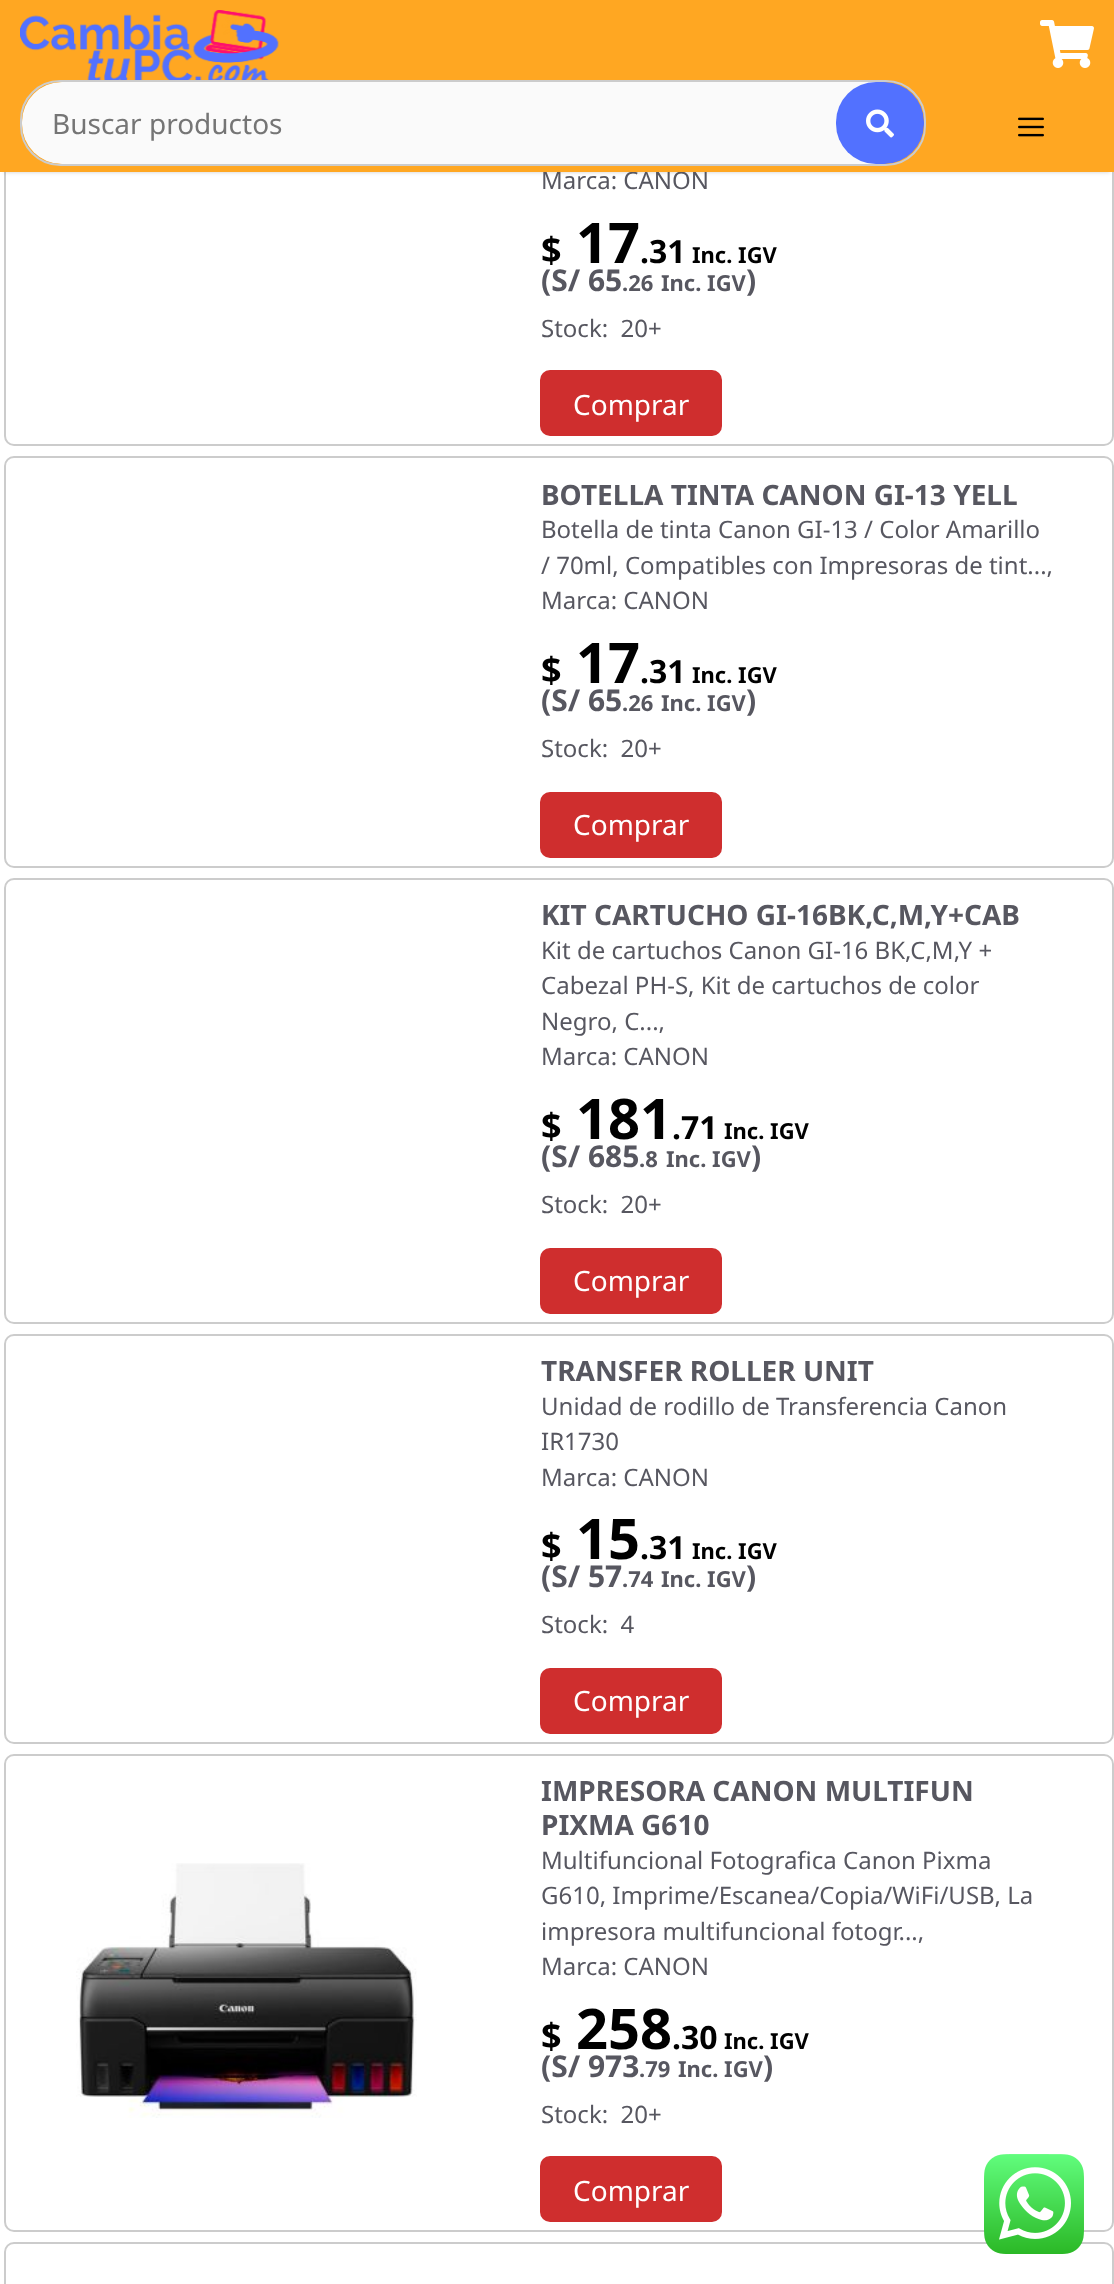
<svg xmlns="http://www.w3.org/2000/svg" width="1114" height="2284">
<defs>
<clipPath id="clip1"><rect x="22" y="82" width="902" height="82" rx="38"/></clipPath>
</defs>
<rect width="100%" height="100%" fill="#fff"/>
<rect x="5" y="37" width="1108" height="408" rx="9" fill="none" stroke="#ccc" stroke-width="2"/>
<rect x="4" y="8" width="1106" height="164" fill="#00000033" filter="blur(2px)"/>
<text x="541" y="189" style="font-family:Noto Sans;font-size:24px;fill:#575760">Marca: CANON</text>
<rect width="1114" height="172" fill="#ffa722"/>
<image x="20" y="10" width="259" height="70" href="media/1.png"/>
<image x="1040" y="20" width="54" height="48" href="media/2.png"/>
<rect x="21" y="81" width="904" height="84" rx="39" fill="none" stroke="#ccc" stroke-width="2"/>
<g clip-path="url(#clip1)">
<rect x="22" y="82" width="894" height="82" rx="40" fill="#fafafa"/>
</g>
<text x="52" y="134" style="font-family:Noto Sans;font-size:28px;fill:#757575">Buscar productos</text>
<g clip-path="url(#clip1)">
<rect x="836" y="82" width="88" height="82" rx="40" fill="#5271ff"/>
</g>
<image x="866" y="109" width="28" height="29" href="media/3.png"/>
<image x="1018" y="117" width="26" height="20" href="media/4.png"/>
<text x="541" y="263" style="font-family:Noto Sans;font-size:36px;font-weight:bold;fill:#000">$</text>
<text x="576" y="263" style="font-family:Noto Sans;font-size:56px;font-weight:bold;fill:#000">17</text>
<text x="640" y="263" style="font-family:Noto Sans;font-size:32px;font-weight:bold;fill:#000">.31</text>
<text x="692" y="263" style="font-family:Noto Sans;font-size:22px;font-weight:bold;fill:#000">Inc. IGV</text>
<text x="541" y="291" style="font-family:Noto Sans;font-size:30px;font-weight:bold;fill:#575760">(S/ 65</text>
<text x="622" y="291" style="font-family:Noto Sans;font-size:22px;font-weight:bold;fill:#575760">.26</text>
<text x="661" y="291" style="font-family:Noto Sans;font-size:22px;font-weight:bold;fill:#575760">Inc. IGV</text>
<text x="746" y="291" style="font-family:Noto Sans;font-size:30px;font-weight:bold;fill:#575760">)</text>
<text x="541" y="337" style="font-family:Noto Sans;font-size:24px;fill:#575760" xml:space="preserve">Stock:  20+</text>
<rect x="540" y="370" width="182" height="66" rx="10" fill="#cf2e2e"/>
<text x="573" y="415" style="font-family:Noto Sans;font-size:28px;fill:#fff">Comprar</text>
<rect x="5" y="457" width="1108" height="410" rx="9" fill="none" stroke="#ccc" stroke-width="2"/>
<text x="541" y="505" style="font-family:Noto Sans;font-size:28px;font-weight:bold;fill:#575760">BOTELLA TINTA CANON GI-13 YELL</text>
<text x="541" y="538" style="font-family:Noto Sans;font-size:24px;fill:#575760">Botella de tinta Canon GI-13 / Color Amarillo</text>
<text x="541" y="574" style="font-family:Noto Sans;font-size:24px;fill:#575760">/ 70ml, Compatibles con Impresoras de tint...,</text>
<text x="541" y="609" style="font-family:Noto Sans;font-size:24px;fill:#575760">Marca: CANON</text>
<text x="541" y="683" style="font-family:Noto Sans;font-size:36px;font-weight:bold;fill:#000">$</text>
<text x="576" y="683" style="font-family:Noto Sans;font-size:56px;font-weight:bold;fill:#000">17</text>
<text x="640" y="683" style="font-family:Noto Sans;font-size:32px;font-weight:bold;fill:#000">.31</text>
<text x="692" y="683" style="font-family:Noto Sans;font-size:22px;font-weight:bold;fill:#000">Inc. IGV</text>
<text x="541" y="711" style="font-family:Noto Sans;font-size:30px;font-weight:bold;fill:#575760">(S/ 65</text>
<text x="622" y="711" style="font-family:Noto Sans;font-size:22px;font-weight:bold;fill:#575760">.26</text>
<text x="661" y="711" style="font-family:Noto Sans;font-size:22px;font-weight:bold;fill:#575760">Inc. IGV</text>
<text x="746" y="711" style="font-family:Noto Sans;font-size:30px;font-weight:bold;fill:#575760">)</text>
<text x="541" y="757" style="font-family:Noto Sans;font-size:24px;fill:#575760" xml:space="preserve">Stock:  20+</text>
<rect x="540" y="792" width="182" height="66" rx="10" fill="#cf2e2e"/>
<text x="573" y="835" style="font-family:Noto Sans;font-size:28px;fill:#fff">Comprar</text>
<rect x="5" y="879" width="1108" height="444" rx="9" fill="none" stroke="#ccc" stroke-width="2"/>
<text x="541" y="925" style="font-family:Noto Sans;font-size:28px;font-weight:bold;fill:#575760">KIT CARTUCHO GI-16BK,C,M,Y+CAB</text>
<text x="541" y="959" style="font-family:Noto Sans;font-size:24px;fill:#575760">Kit de cartuchos Canon GI-16 BK,C,M,Y +</text>
<text x="541" y="994" style="font-family:Noto Sans;font-size:24px;fill:#575760">Cabezal PH-S, Kit de cartuchos de color</text>
<text x="541" y="1030" style="font-family:Noto Sans;font-size:24px;fill:#575760">Negro, C...,</text>
<text x="541" y="1065" style="font-family:Noto Sans;font-size:24px;fill:#575760">Marca: CANON</text>
<text x="541" y="1139" style="font-family:Noto Sans;font-size:36px;font-weight:bold;fill:#000">$</text>
<text x="576" y="1139" style="font-family:Noto Sans;font-size:56px;font-weight:bold;fill:#000">181</text>
<text x="672" y="1139" style="font-family:Noto Sans;font-size:32px;font-weight:bold;fill:#000">.71</text>
<text x="724" y="1139" style="font-family:Noto Sans;font-size:22px;font-weight:bold;fill:#000">Inc. IGV</text>
<text x="541" y="1167" style="font-family:Noto Sans;font-size:30px;font-weight:bold;fill:#575760">(S/ 685</text>
<text x="639" y="1167" style="font-family:Noto Sans;font-size:22px;font-weight:bold;fill:#575760">.8</text>
<text x="666" y="1167" style="font-family:Noto Sans;font-size:22px;font-weight:bold;fill:#575760">Inc. IGV</text>
<text x="751" y="1167" style="font-family:Noto Sans;font-size:30px;font-weight:bold;fill:#575760">)</text>
<text x="541" y="1213" style="font-family:Noto Sans;font-size:24px;fill:#575760" xml:space="preserve">Stock:  20+</text>
<rect x="540" y="1248" width="182" height="66" rx="10" fill="#cf2e2e"/>
<text x="573" y="1291" style="font-family:Noto Sans;font-size:28px;fill:#fff">Comprar</text>
<rect x="5" y="1335" width="1108" height="408" rx="9" fill="none" stroke="#ccc" stroke-width="2"/>
<text x="541" y="1381" style="font-family:Noto Sans;font-size:28px;font-weight:bold;fill:#575760">TRANSFER ROLLER UNIT</text>
<text x="541" y="1415" style="font-family:Noto Sans;font-size:24px;fill:#575760">Unidad de rodillo de Transferencia Canon</text>
<text x="541" y="1450" style="font-family:Noto Sans;font-size:24px;fill:#575760">IR1730</text>
<text x="541" y="1486" style="font-family:Noto Sans;font-size:24px;fill:#575760">Marca: CANON</text>
<text x="541" y="1559" style="font-family:Noto Sans;font-size:36px;font-weight:bold;fill:#000">$</text>
<text x="576" y="1559" style="font-family:Noto Sans;font-size:56px;font-weight:bold;fill:#000">15</text>
<text x="640" y="1559" style="font-family:Noto Sans;font-size:32px;font-weight:bold;fill:#000">.31</text>
<text x="692" y="1559" style="font-family:Noto Sans;font-size:22px;font-weight:bold;fill:#000">Inc. IGV</text>
<text x="541" y="1587" style="font-family:Noto Sans;font-size:30px;font-weight:bold;fill:#575760">(S/ 57</text>
<text x="622" y="1587" style="font-family:Noto Sans;font-size:22px;font-weight:bold;fill:#575760">.74</text>
<text x="661" y="1587" style="font-family:Noto Sans;font-size:22px;font-weight:bold;fill:#575760">Inc. IGV</text>
<text x="746" y="1587" style="font-family:Noto Sans;font-size:30px;font-weight:bold;fill:#575760">)</text>
<text x="541" y="1633" style="font-family:Noto Sans;font-size:24px;fill:#575760" xml:space="preserve">Stock:  4</text>
<rect x="540" y="1668" width="182" height="66" rx="10" fill="#cf2e2e"/>
<text x="573" y="1711" style="font-family:Noto Sans;font-size:28px;fill:#fff">Comprar</text>
<rect x="5" y="1755" width="1108" height="476" rx="9" fill="none" stroke="#ccc" stroke-width="2"/>
<image x="76" y="1863" width="341" height="255" href="media/5.png"/>
<text x="541" y="1801" style="font-family:Noto Sans;font-size:28px;font-weight:bold;fill:#575760">IMPRESORA CANON MULTIFUN</text>
<text x="541" y="1835" style="font-family:Noto Sans;font-size:28px;font-weight:bold;fill:#575760">PIXMA G610</text>
<text x="541" y="1869" style="font-family:Noto Sans;font-size:24px;fill:#575760">Multifuncional Fotografica Canon Pixma</text>
<text x="541" y="1904" style="font-family:Noto Sans;font-size:24px;fill:#575760">G610, Imprime/Escanea/Copia/WiFi/USB, La</text>
<text x="541" y="1940" style="font-family:Noto Sans;font-size:24px;fill:#575760">impresora multifuncional fotogr...,</text>
<text x="541" y="1975" style="font-family:Noto Sans;font-size:24px;fill:#575760">Marca: CANON</text>
<text x="541" y="2049" style="font-family:Noto Sans;font-size:36px;font-weight:bold;fill:#000">$</text>
<text x="576" y="2049" style="font-family:Noto Sans;font-size:56px;font-weight:bold;fill:#000">258</text>
<text x="672" y="2049" style="font-family:Noto Sans;font-size:32px;font-weight:bold;fill:#000">.30</text>
<text x="724" y="2049" style="font-family:Noto Sans;font-size:22px;font-weight:bold;fill:#000">Inc. IGV</text>
<text x="541" y="2077" style="font-family:Noto Sans;font-size:30px;font-weight:bold;fill:#575760">(S/ 973</text>
<text x="639" y="2077" style="font-family:Noto Sans;font-size:22px;font-weight:bold;fill:#575760">.79</text>
<text x="678" y="2077" style="font-family:Noto Sans;font-size:22px;font-weight:bold;fill:#575760">Inc. IGV</text>
<text x="763" y="2077" style="font-family:Noto Sans;font-size:30px;font-weight:bold;fill:#575760">)</text>
<text x="541" y="2123" style="font-family:Noto Sans;font-size:24px;fill:#575760" xml:space="preserve">Stock:  20+</text>
<rect x="540" y="2156" width="182" height="66" rx="10" fill="#cf2e2e"/>
<text x="573" y="2201" style="font-family:Noto Sans;font-size:28px;fill:#fff">Comprar</text>
<rect x="5" y="2243" width="1108" height="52" rx="9" fill="none" stroke="#ccc" stroke-width="2"/>
<image x="984" y="2154" width="100" height="100" href="media/6.png"/>
</svg>
